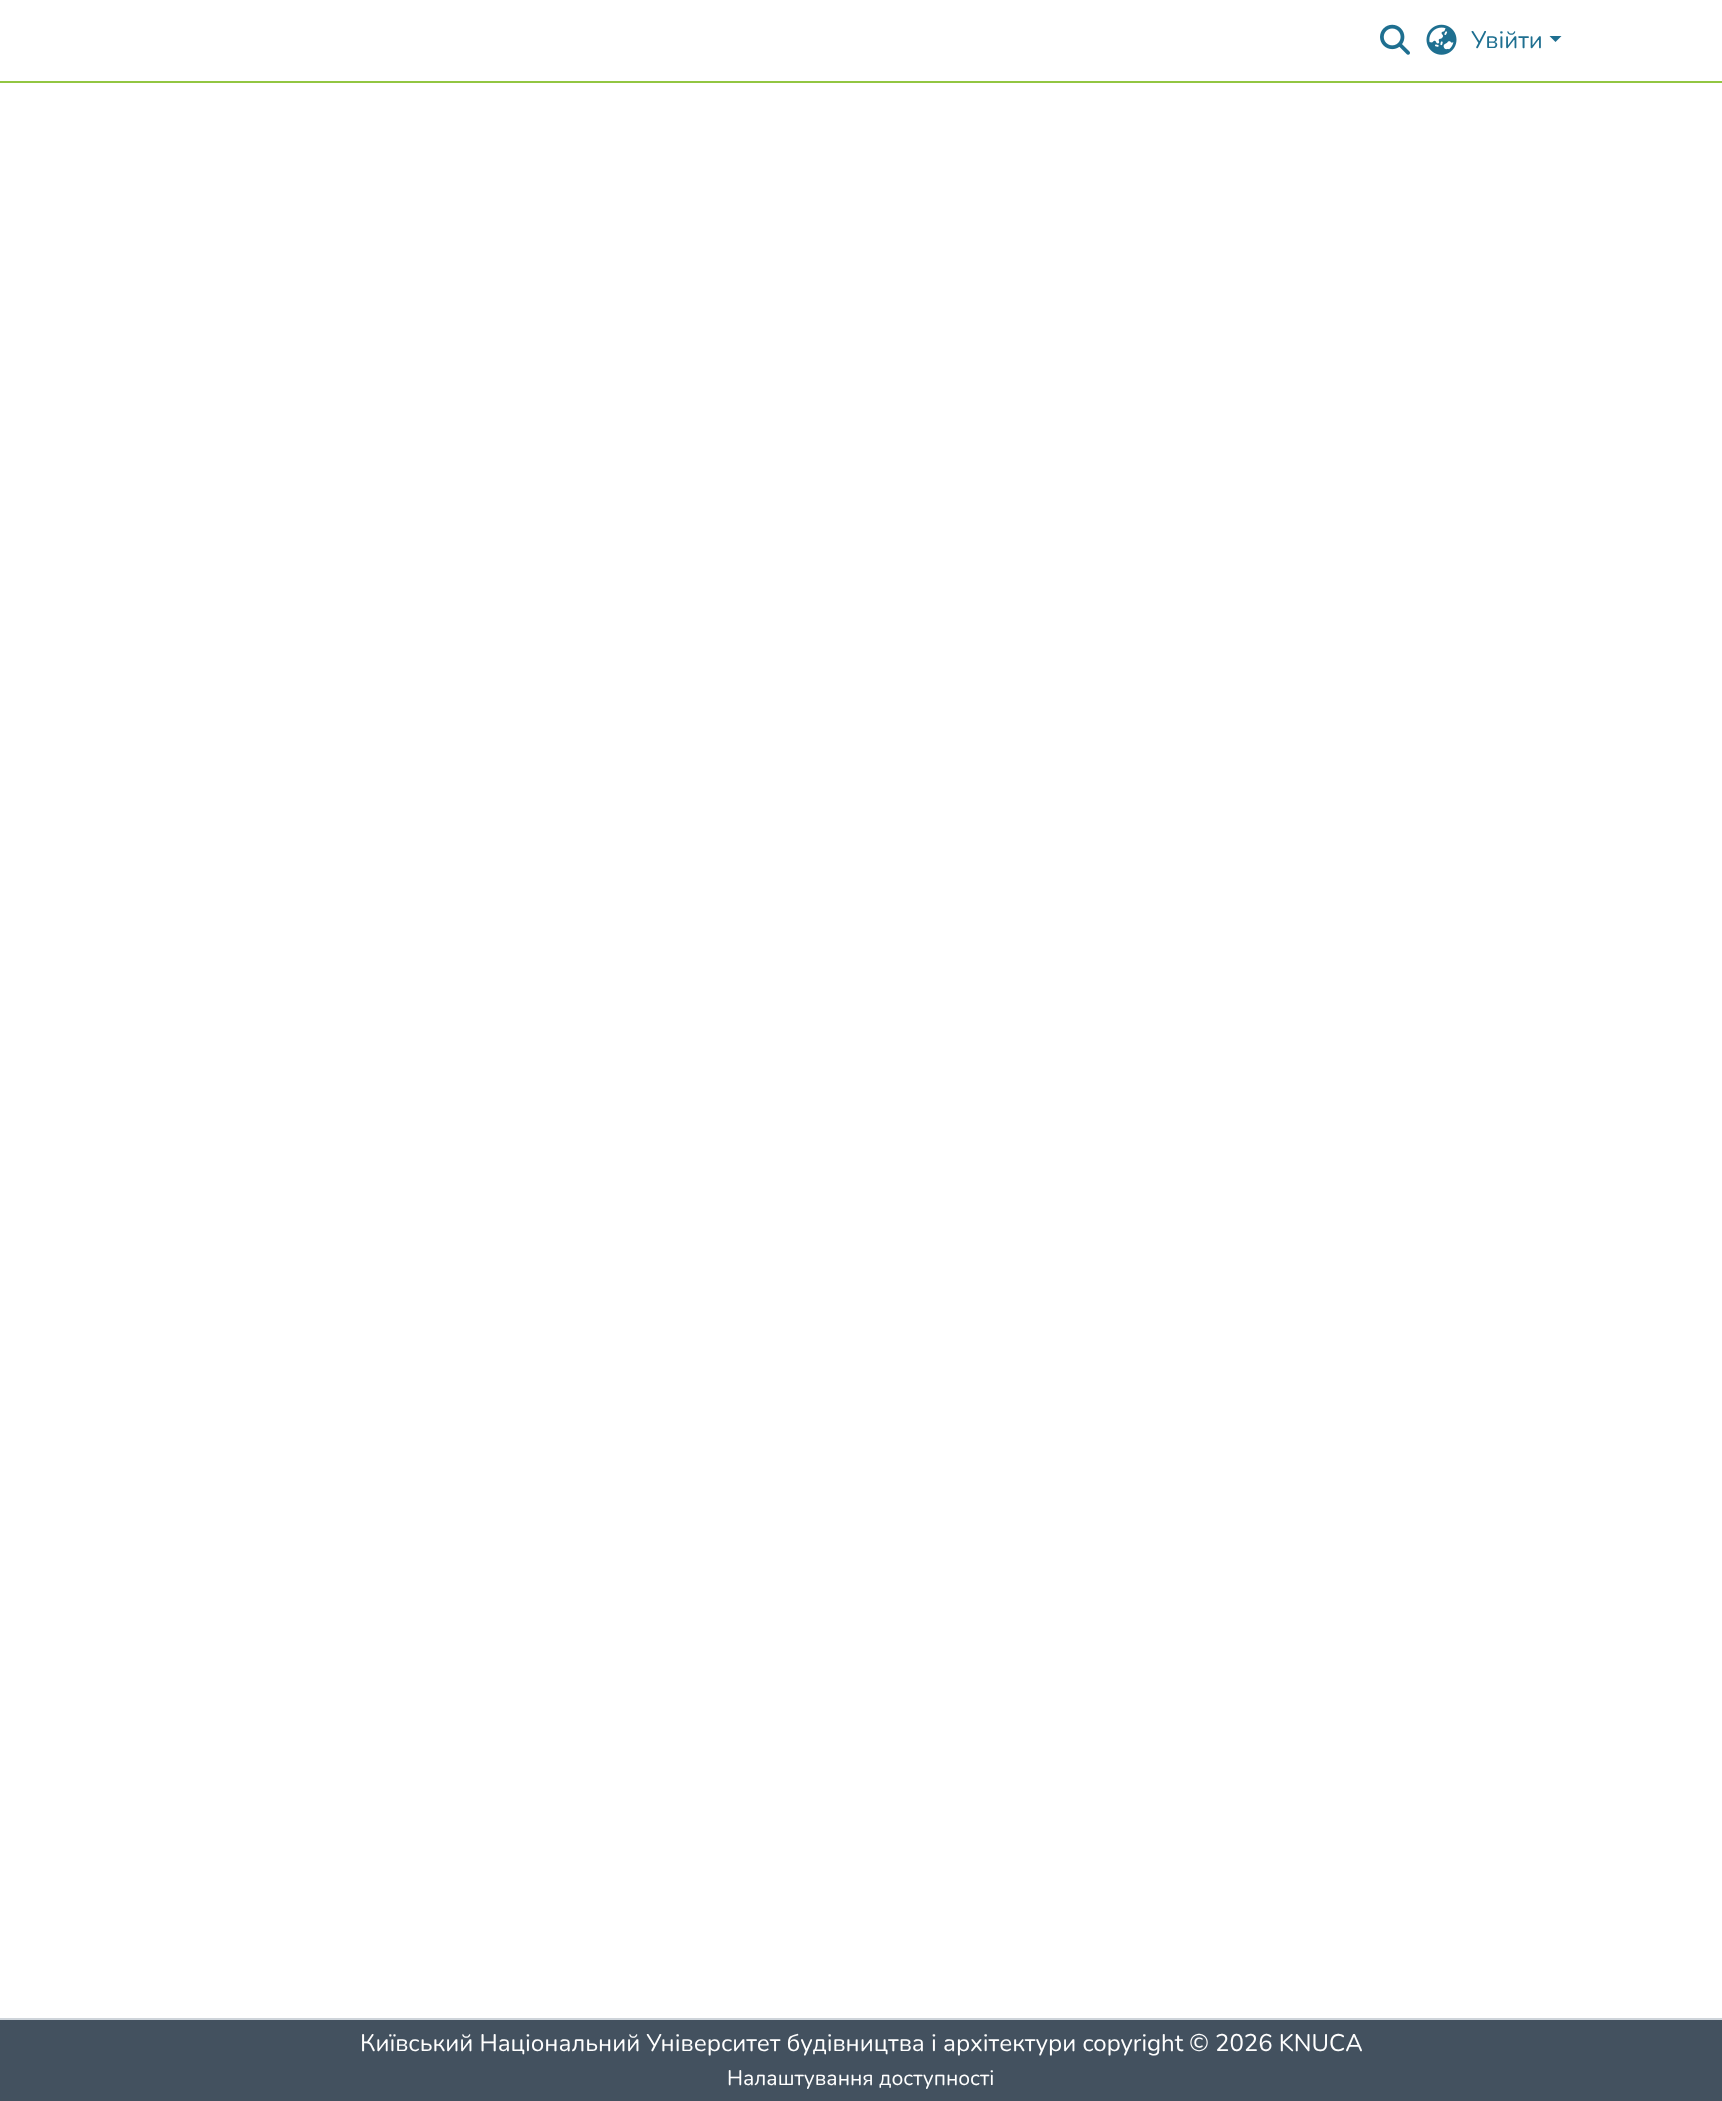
<svg xmlns="http://www.w3.org/2000/svg" width="1722" height="2101">
<rect width="100%" height="100%" fill="#fff"/>
<rect y="81" width="1722" height="2" fill="#92c642"/>
<image x="1380" y="24" width="30" height="31" href="media/1.png"/>
<image x="1426" y="24" width="31" height="31" href="media/2.png"/>
<text x="1471" y="48" style="font-family:Nunito;font-size:24px;fill:#1e6f90">Увійти</text>
<path d="M1549.5 36h12l-6 6z" fill="#1e6f90"/>
<rect y="2020" width="1722" height="81" fill="#43515f"/>
<rect y="2018" width="1722" height="2" fill="#ced4da"/>
<text x="360" y="2051" style="font-family:Nunito;font-size:24px;fill:#fff">Київський Національний Університет будівництва і архітектури copyright © 2026 KNUCA</text>
<text x="727" y="2085" style="font-family:Nunito;font-size:21px;fill:#fff">Налаштування доступності</text>
</svg>
